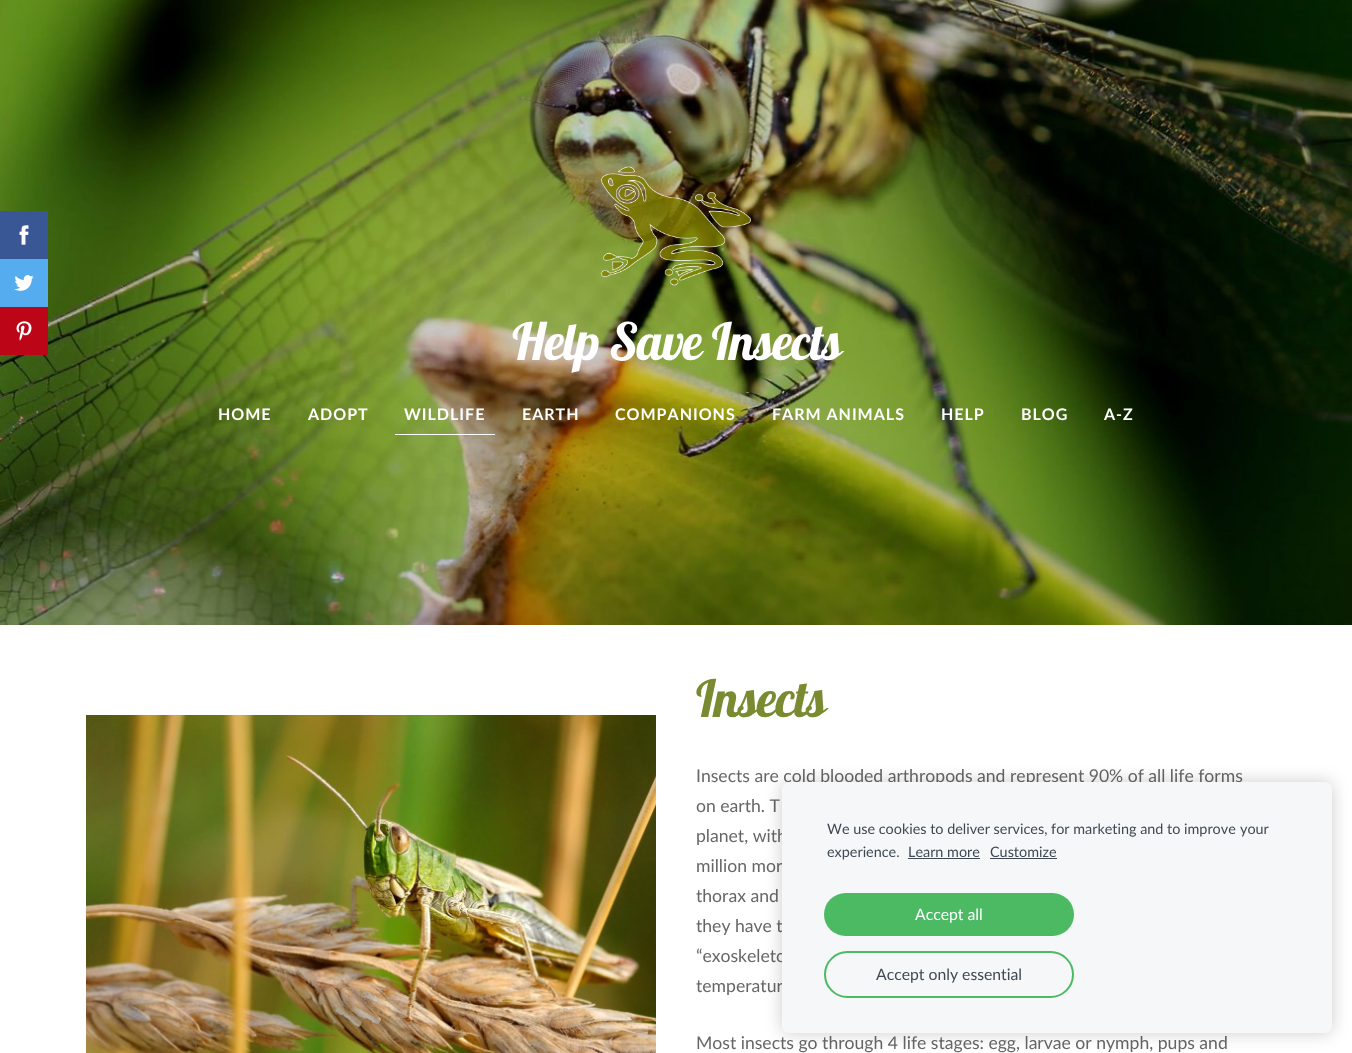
<svg xmlns="http://www.w3.org/2000/svg" width="1352" height="1053">
<style>*{font-kerning:none!important;font-variant-ligatures:none!important}</style>
<rect width="100%" height="100%" fill="#fff"/>
<image x="0" y="0" width="1352" height="625" href="media/4.png"/>
<rect y="211" width="48" height="48" fill="#3a5795"/>
<image x="19" y="225" width="10" height="20" href="media/1.png"/>
<rect y="259" width="48" height="48" fill="#55acee"/>
<image x="14" y="275" width="20" height="16" href="media/2.png"/>
<rect y="307" width="48" height="48" fill="#bc0618"/>
<image x="16" y="321" width="16" height="20" href="media/3.png"/>
<image x="601" y="166" width="150" height="120" href="media/5.png"/>
<text x="512" y="360" style="font-family:Lobster;font-size:51px;letter-spacing:-1px;fill:#fff">Help Save Insects</text>
<text x="218" y="420" style="font-family:Lato;font-size:16px;font-weight:bold;letter-spacing:1px;fill:#fff">HOME</text>
<text x="308" y="420" style="font-family:Lato;font-size:16px;font-weight:bold;letter-spacing:1px;fill:#fff">ADOPT</text>
<rect x="395" y="434" width="100" height="1" fill="#fff"/>
<text x="404" y="420" style="font-family:Lato;font-size:16px;font-weight:bold;letter-spacing:1px;fill:#fff">WILDLIFE</text>
<text x="522" y="420" style="font-family:Lato;font-size:16px;font-weight:bold;letter-spacing:1px;fill:#fff">EARTH</text>
<text x="615" y="420" style="font-family:Lato;font-size:16px;font-weight:bold;letter-spacing:1px;fill:#fff">COMPANIONS</text>
<text x="772" y="420" style="font-family:Lato;font-size:16px;font-weight:bold;letter-spacing:1px;fill:#fff">FARM ANIMALS</text>
<text x="941" y="420" style="font-family:Lato;font-size:16px;font-weight:bold;letter-spacing:1px;fill:#fff">HELP</text>
<text x="1021" y="420" style="font-family:Lato;font-size:16px;font-weight:bold;letter-spacing:1px;fill:#fff">BLOG</text>
<text x="1104" y="420" style="font-family:Lato;font-size:16px;font-weight:bold;letter-spacing:1px;fill:#fff">A-Z</text>
<image x="86" y="715" width="570" height="338" href="media/6.png"/>
<text x="696" y="717" style="font-family:Lobster;font-size:51px;letter-spacing:-1px;fill:#7a8a30">Insects</text>
<text x="696" y="782" style="font-family:Lato;font-size:17.6px;fill:#666">Insects are cold blooded arthropods and represent 90% of all life forms</text>
<text x="696" y="812" style="font-family:Lato;font-size:17.6px;fill:#666">on earth. T</text>
<text x="696" y="842" style="font-family:Lato;font-size:17.6px;fill:#666">planet, with</text>
<text x="696" y="872" style="font-family:Lato;font-size:17.6px;fill:#666">million mor</text>
<text x="696" y="902" style="font-family:Lato;font-size:17.6px;fill:#666">thorax and</text>
<text x="696" y="932" style="font-family:Lato;font-size:17.6px;fill:#666">they have t</text>
<text x="696" y="962" style="font-family:Lato;font-size:17.6px;fill:#666">“exoskeleto</text>
<text x="696" y="992" style="font-family:Lato;font-size:17.6px;fill:#666">temperatur</text>
<text x="696" y="1049" style="font-family:Lato;font-size:17.6px;fill:#666">Most insects go through 4 life stages: egg, larvae or nymph, pups and</text>
<rect x="782" y="782" width="550" height="251" rx="7" fill="#00000033" filter="blur(8.5px)"/>
<rect x="782" y="782" width="550" height="251" rx="7" fill="#f6f7f9"/>
<text x="827" y="834" style="font-family:Lato;font-size:14.4px;fill:#3f4954">We use cookies to deliver services, for marketing and to improve</text>
<text x="1240" y="834" style="font-family:Lato;font-size:14.4px;fill:#3f4954">your</text>
<text x="827" y="857" style="font-family:Lato;font-size:14.4px;fill:#3f4954">experience.</text>
<text x="908" y="857" style="font-family:Lato;font-size:14.4px;fill:#3f4954">Learn more</text>
<rect x="908" y="858" width="72" height="1" fill="#3f4954"/>
<text x="990" y="857" style="font-family:Lato;font-size:14.4px;fill:#3f4954">Customize</text>
<rect x="990" y="858" width="67" height="1" fill="#3f4954"/>
<rect x="824" y="893" width="250" height="43" rx="21.5" fill="#4cb963"/>
<text x="915" y="920" style="font-family:Lato;font-size:15.75px;fill:#fff">Accept all</text>
<rect x="825" y="952" width="248" height="45" rx="22.5" fill="none" stroke="#4cb963" stroke-width="2"/>
<text x="876" y="980" style="font-family:Lato;font-size:15.75px;fill:#3f4954">Accept only essential</text>
</svg>
